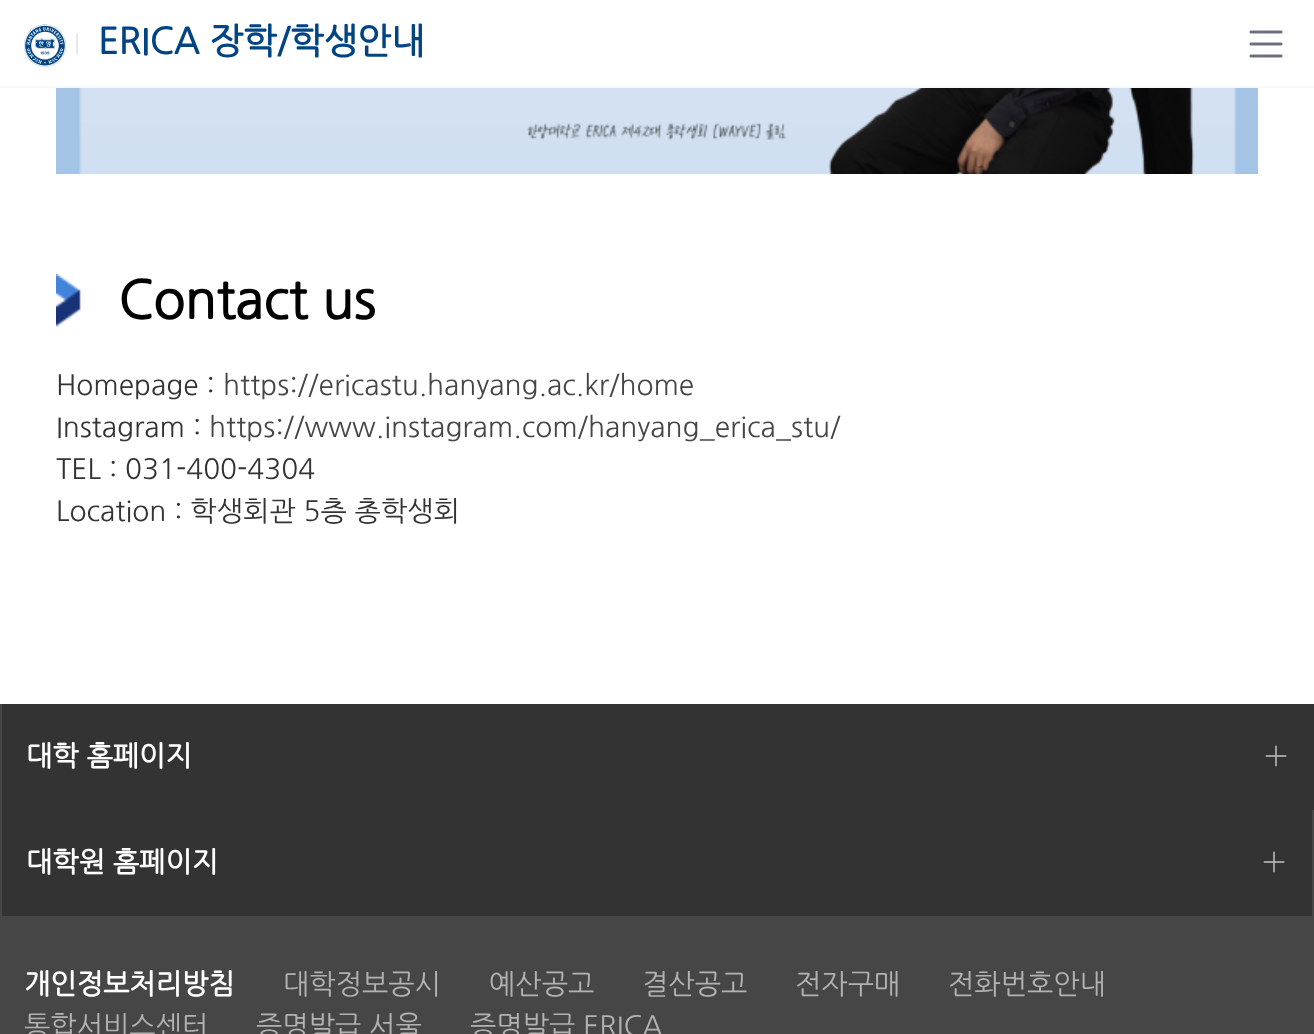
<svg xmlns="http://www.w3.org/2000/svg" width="1314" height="1034">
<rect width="100%" height="100%" fill="#fff"/>
<rect y="86" width="1314" height="2" fill="#f7f8f9"/>
<image x="24" y="24" width="42" height="43" href="media/1.png"/>
<rect x="76" y="34" width="2" height="20" fill="#e7e7ed"/>
<text x="98" y="54" style="font-family:NanumGothic;font-size:35.75px;font-weight:bold;fill:#004483">ERICA 장학/학생안내</text>
<image x="1249" y="30" width="34" height="28" href="media/2.png"/>
<image x="56" y="88" width="1202" height="86" href="media/3.png"/>
<image x="56" y="274" width="25" height="53" href="media/4.png"/>
<text x="118" y="319" style="font-family:NanumGothic;font-size:52px;font-weight:bold;fill:#000">Contact us</text>
<text x="56" y="395" style="font-family:NanumGothic;font-size:28px;fill:#333">Homepage :</text>
<text x="223" y="395" style="font-family:NanumGothic;font-size:28px;fill:#464646">https://ericastu.hanyang.ac.kr/home</text>
<text x="56" y="437" style="font-family:NanumGothic;font-size:28px;fill:#333">Instagram :</text>
<text x="209" y="437" style="font-family:NanumGothic;font-size:28px;fill:#464646">https://www.instagram.com/hanyang_erica_stu/</text>
<text x="56" y="479" style="font-family:NanumGothic;font-size:28px;fill:#333">TEL : 031-400-4304</text>
<text x="56" y="521" style="font-family:NanumGothic;font-size:28px;fill:#333">Location : 학생회관 5층 총학생회</text>
<rect y="916" width="1314" height="118" fill="#464646"/>
<rect x="2" y="704" width="1312" height="212" fill="#333"/>
<rect y="704" width="2" height="212" fill="#464646"/>
<text x="26" y="766" style="font-family:NanumGothic;font-size:28px;font-weight:bold;fill:#fff">대학 홈페이지</text>
<image x="1265" y="745" width="22" height="22" href="media/5.png"/>
<rect x="1312" y="810" width="2" height="106" fill="#464646"/>
<text x="26" y="872" style="font-family:NanumGothic;font-size:28px;font-weight:bold;fill:#fff">대학원 홈페이지</text>
<image x="1263" y="851" width="22" height="22" href="media/5.png"/>
<text x="24" y="994" style="font-family:NanumGothic;font-size:28px;font-weight:bold;fill:#fff">개인정보처리방침</text>
<text x="283" y="994" style="font-family:NanumGothic;font-size:28px;fill:#b2b2b2">대학정보공시</text>
<text x="489" y="994" style="font-family:NanumGothic;font-size:28px;fill:#b2b2b2">예산공고</text>
<text x="642" y="994" style="font-family:NanumGothic;font-size:28px;fill:#b2b2b2">결산공고</text>
<text x="795" y="994" style="font-family:NanumGothic;font-size:28px;fill:#b2b2b2">전자구매</text>
<text x="948" y="994" style="font-family:NanumGothic;font-size:28px;fill:#b2b2b2">전화번호안내</text>
<text x="24" y="1036" style="font-family:NanumGothic;font-size:28px;fill:#b2b2b2">통합서비스센터</text>
<text x="256" y="1036" style="font-family:NanumGothic;font-size:28px;fill:#b2b2b2">증명발급 서울</text>
<text x="470" y="1036" style="font-family:NanumGothic;font-size:28px;fill:#b2b2b2">증명발급 ERICA</text>
</svg>
